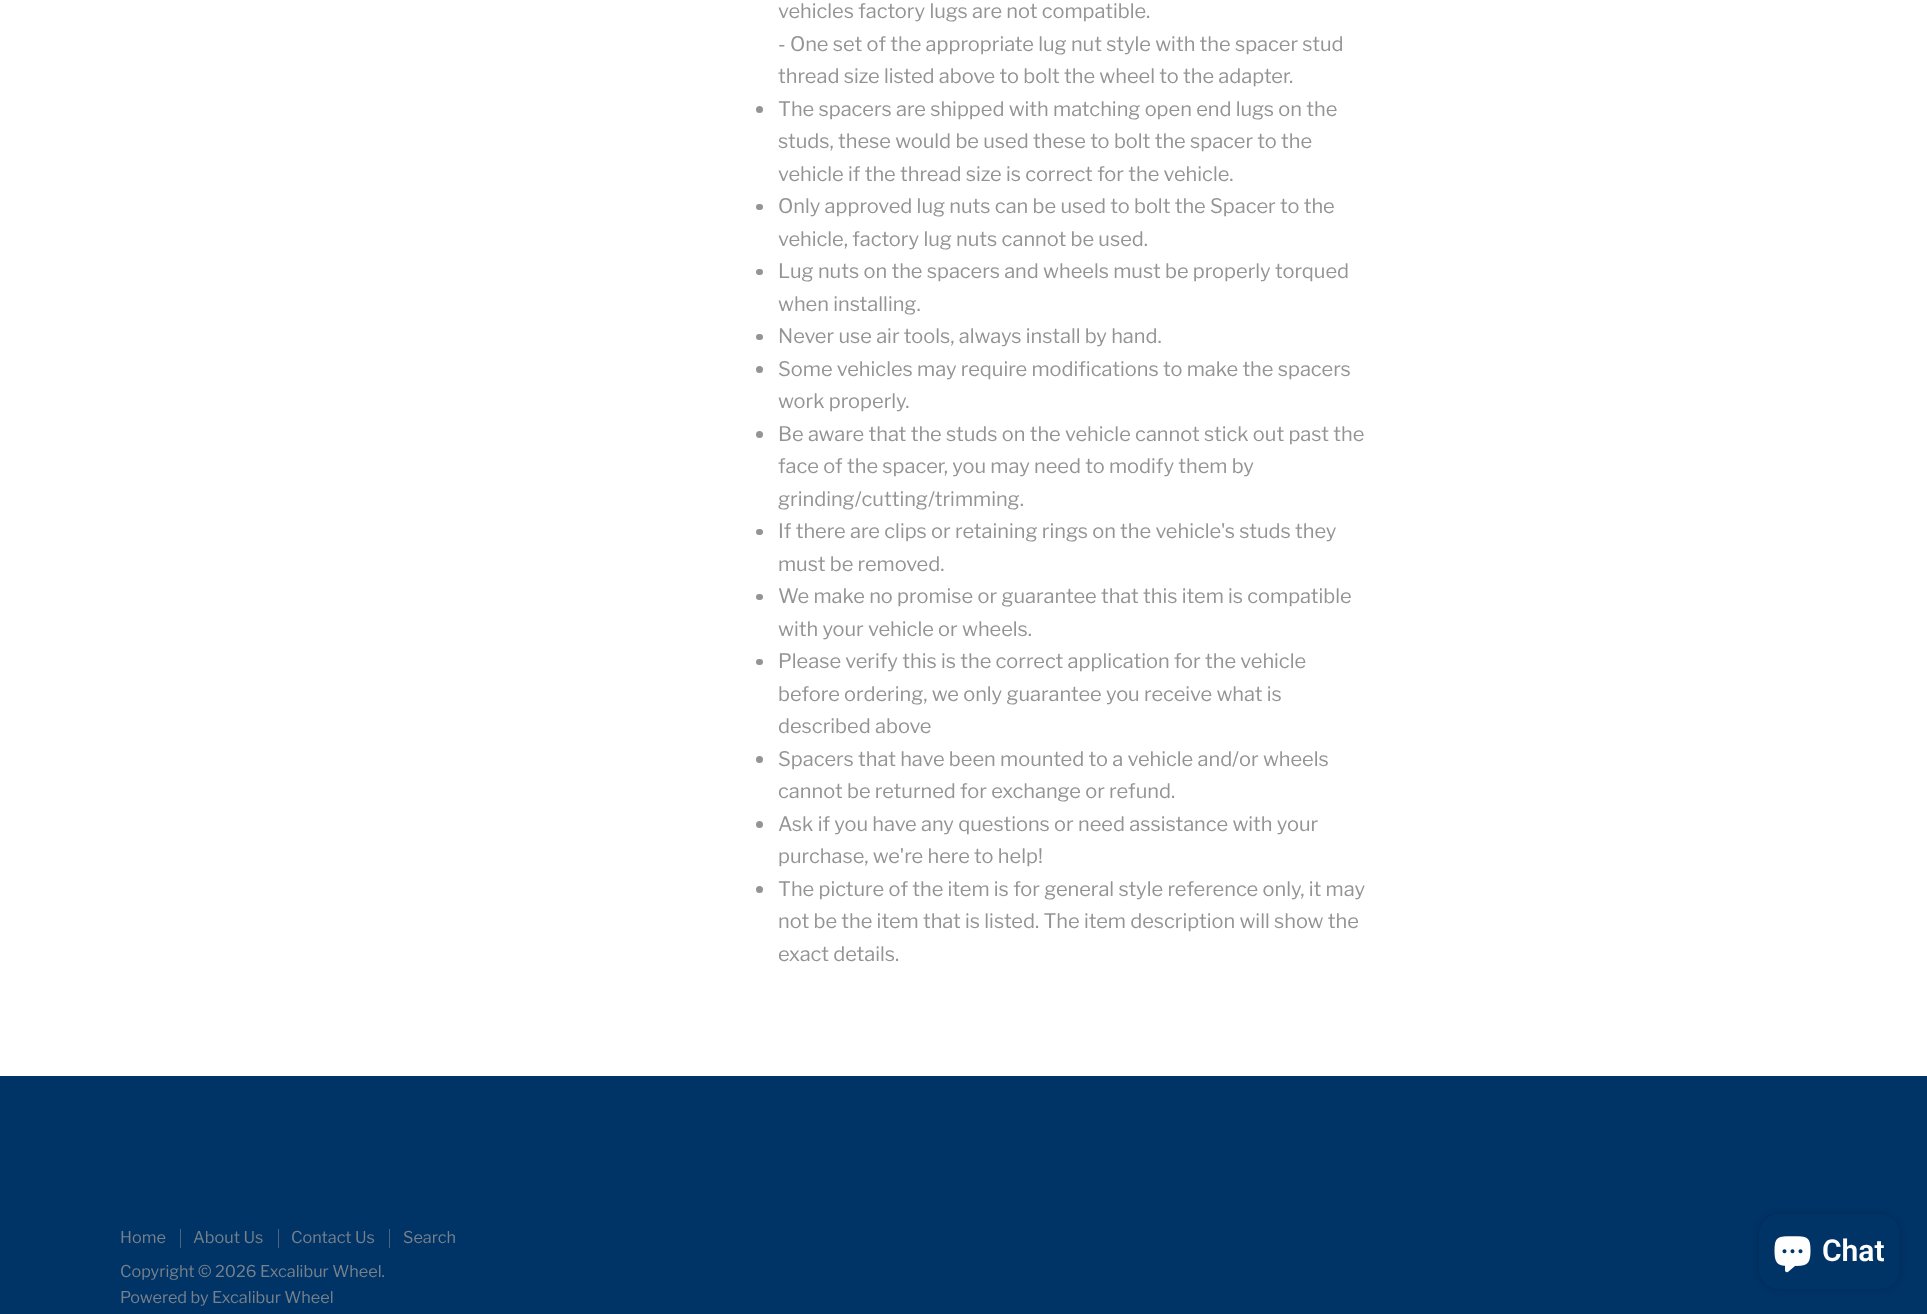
<svg xmlns="http://www.w3.org/2000/svg" width="1927" height="1314">
<rect width="100%" height="100%" fill="#fff"/>
<text x="778" y="18" style="font-family:Libre Franklin;font-size:20px;fill:#949494">vehicles factory lugs are not compatible.</text>
<text x="778" y="51" style="font-family:Libre Franklin;font-size:20px;fill:#949494">- One set of the appropriate lug nut style with the spacer stud</text>
<text x="778" y="83" style="font-family:Libre Franklin;font-size:20px;fill:#949494">thread size listed above to bolt the wheel to the adapter.</text>
<circle cx="759.5" cy="109.5" r="3.5" fill="#949494"/>
<text x="778" y="116" style="font-family:Libre Franklin;font-size:20px;fill:#949494">The spacers are shipped with matching open end lugs on the</text>
<text x="778" y="148" style="font-family:Libre Franklin;font-size:20px;fill:#949494">studs, these would be used these to bolt the spacer to the</text>
<text x="778" y="181" style="font-family:Libre Franklin;font-size:20px;fill:#949494">vehicle if the thread size is correct for the vehicle.</text>
<rect x="756" y="204" width="7" height="6" rx="3" fill="#949494"/>
<text x="778" y="213" style="font-family:Libre Franklin;font-size:20px;fill:#949494">Only approved lug nuts can be used to bolt the Spacer to the</text>
<text x="778" y="246" style="font-family:Libre Franklin;font-size:20px;fill:#949494">vehicle, factory lug nuts cannot be used.</text>
<rect x="756" y="269" width="7" height="6" rx="3" fill="#949494"/>
<text x="778" y="278" style="font-family:Libre Franklin;font-size:20px;fill:#949494">Lug nuts on the spacers and wheels must be properly torqued</text>
<text x="778" y="311" style="font-family:Libre Franklin;font-size:20px;fill:#949494">when installing.</text>
<rect x="756" y="334" width="7" height="6" rx="3" fill="#949494"/>
<text x="778" y="343" style="font-family:Libre Franklin;font-size:20px;fill:#949494">Never use air tools, always install by hand.</text>
<circle cx="759.5" cy="369.5" r="3.5" fill="#949494"/>
<text x="778" y="376" style="font-family:Libre Franklin;font-size:20px;fill:#949494">Some vehicles may require modifications to make the spacers</text>
<text x="778" y="408" style="font-family:Libre Franklin;font-size:20px;fill:#949494">work properly.</text>
<circle cx="759.5" cy="434.5" r="3.5" fill="#949494"/>
<text x="778" y="441" style="font-family:Libre Franklin;font-size:20px;fill:#949494">Be aware that the studs on the vehicle cannot stick out past the</text>
<text x="778" y="473" style="font-family:Libre Franklin;font-size:20px;fill:#949494">face of the spacer, you may need to modify them by</text>
<text x="778" y="506" style="font-family:Libre Franklin;font-size:20px;fill:#949494">grinding/cutting/trimming.</text>
<rect x="756" y="529" width="7" height="6" rx="3" fill="#949494"/>
<text x="778" y="538" style="font-family:Libre Franklin;font-size:20px;fill:#949494">If there are clips or retaining rings on the vehicle's studs they</text>
<text x="778" y="571" style="font-family:Libre Franklin;font-size:20px;fill:#949494">must be removed.</text>
<rect x="756" y="594" width="7" height="6" rx="3" fill="#949494"/>
<text x="778" y="603" style="font-family:Libre Franklin;font-size:20px;fill:#949494">We make no promise or guarantee that this item is compatible</text>
<text x="778" y="636" style="font-family:Libre Franklin;font-size:20px;fill:#949494">with your vehicle or wheels.</text>
<rect x="756" y="659" width="7" height="6" rx="3" fill="#949494"/>
<text x="778" y="668" style="font-family:Libre Franklin;font-size:20px;fill:#949494">Please verify this is the correct application for the vehicle</text>
<text x="778" y="701" style="font-family:Libre Franklin;font-size:20px;fill:#949494">before ordering, we only guarantee you receive what is</text>
<text x="778" y="733" style="font-family:Libre Franklin;font-size:20px;fill:#949494">described above</text>
<circle cx="759.5" cy="759.5" r="3.5" fill="#949494"/>
<text x="778" y="766" style="font-family:Libre Franklin;font-size:20px;fill:#949494">Spacers that have been mounted to a vehicle and/or wheels</text>
<text x="778" y="798" style="font-family:Libre Franklin;font-size:20px;fill:#949494">cannot be returned for exchange or refund.</text>
<circle cx="759.5" cy="824.5" r="3.5" fill="#949494"/>
<text x="778" y="831" style="font-family:Libre Franklin;font-size:20px;fill:#949494">Ask if you have any questions or need assistance with your</text>
<text x="778" y="863" style="font-family:Libre Franklin;font-size:20px;fill:#949494">purchase, we're here to help!</text>
<circle cx="759.5" cy="889.5" r="3.5" fill="#949494"/>
<text x="778" y="896" style="font-family:Libre Franklin;font-size:20px;fill:#949494">The picture of the item is for general style reference only, it may</text>
<text x="778" y="928" style="font-family:Libre Franklin;font-size:20px;fill:#949494">not be the item that is listed. The item description will show the</text>
<text x="778" y="961" style="font-family:Libre Franklin;font-size:20px;fill:#949494">exact details.</text>
<rect y="1076" width="1927" height="238" fill="#036"/>
<rect x="180" y="1229" width="1" height="19" fill="#4a647d"/>
<text x="120" y="1243" style="font-family:Libre Franklin;font-size:16.25px;fill:#76818b">Home</text>
<rect x="278" y="1229" width="1" height="19" fill="#4a647d"/>
<text x="193" y="1243" style="font-family:Libre Franklin;font-size:16.25px;fill:#76818b">About Us</text>
<rect x="389" y="1229" width="1" height="19" fill="#4a647d"/>
<text x="291" y="1243" style="font-family:Libre Franklin;font-size:16.25px;fill:#76818b">Contact Us</text>
<text x="403" y="1243" style="font-family:Libre Franklin;font-size:16.25px;fill:#76818b">Search</text>
<text x="120" y="1277" style="font-family:Libre Franklin;font-size:16.25px;fill:#76818b">Copyright © 2026 Excalibur Wheel.</text>
<text x="120" y="1303" style="font-family:Libre Franklin;font-size:16.25px;fill:#76818b">Powered by Excalibur Wheel</text>
<rect x="1759" y="1214" width="141" height="75" rx="20" fill="#00000026" filter="blur(3px)"/>
<rect x="1759" y="1214" width="141" height="75" rx="20" fill="#036"/>
<image x="1774" y="1236" width="37" height="37" href="media/1.png"/>
<text x="1822" y="1261" style="font-family:Roboto;font-size:30px;font-weight:600;fill:#fff">Chat</text>
</svg>
